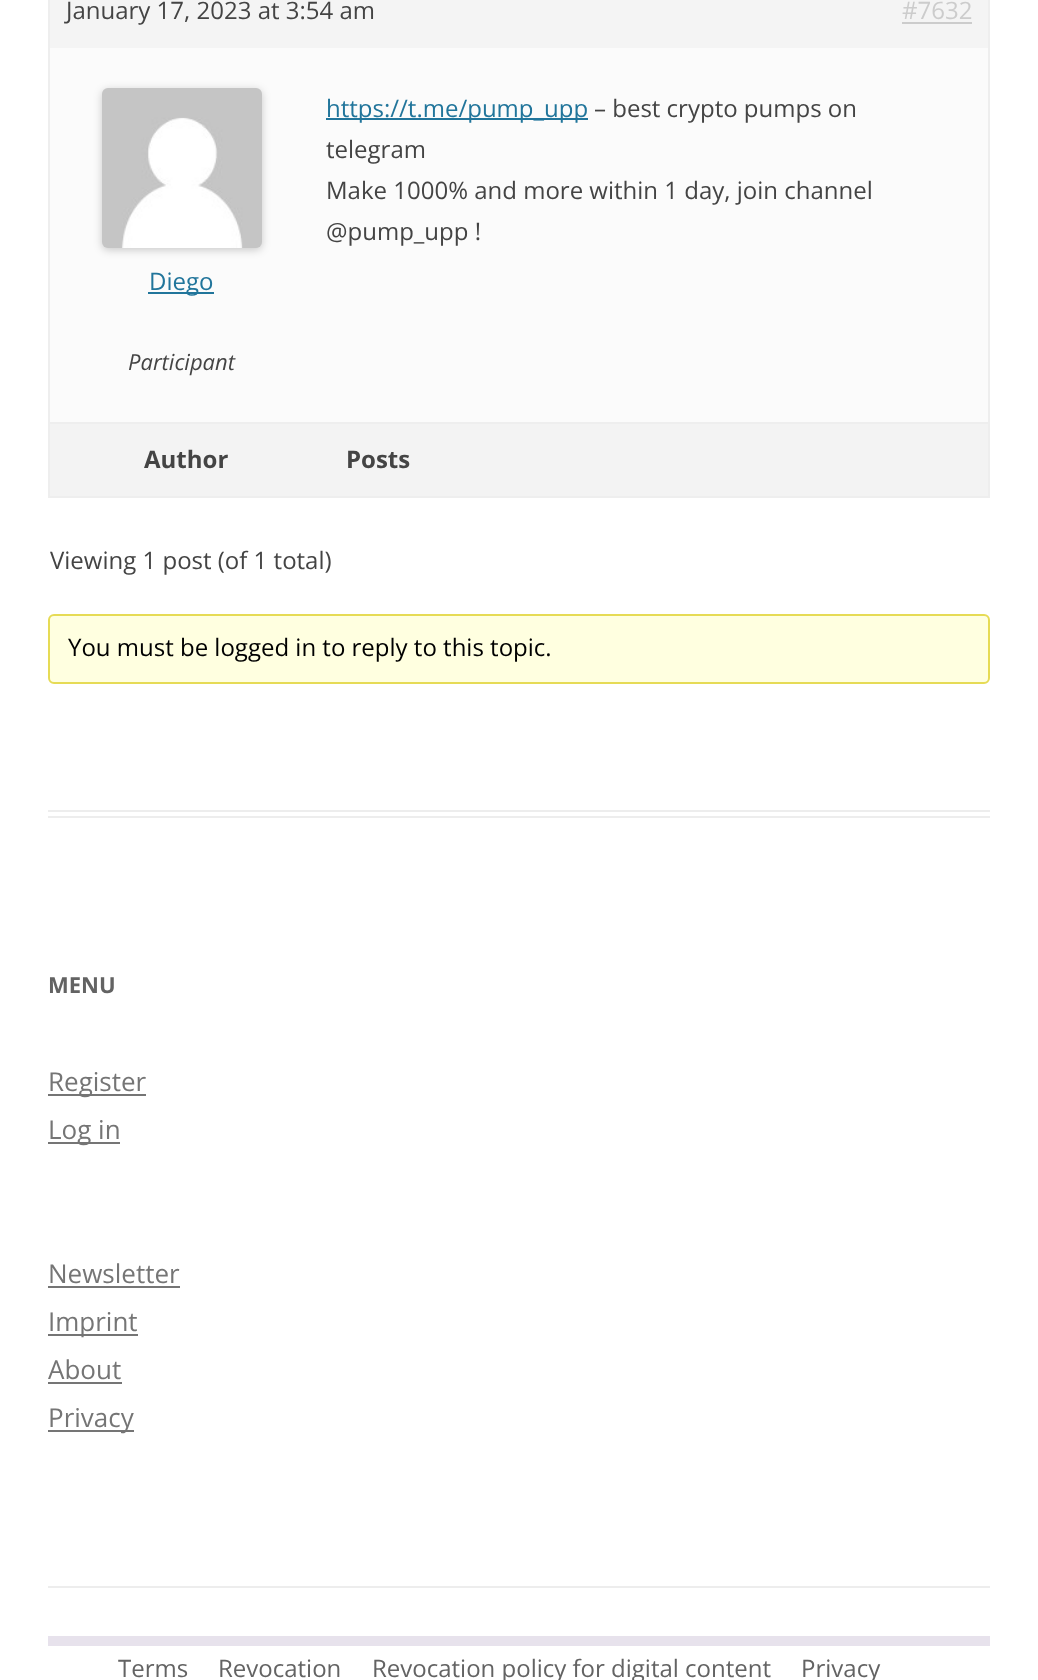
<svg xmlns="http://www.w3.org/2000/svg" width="1038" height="1680">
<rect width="100%" height="100%" fill="#fff"/>
<rect x="48" y="810" width="942" height="2" fill="#ededed"/>
<rect x="48" y="816" width="942" height="2" fill="#ededed"/>
<rect x="49" y="-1" width="940" height="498" fill="none" stroke="#eee" stroke-width="2"/>
<rect x="50" width="938" height="48" fill="#f4f4f4"/>
<text x="66" y="19" style="font-family:Open Sans;font-size:24px;fill:#444">January 17, 2023 at 3:54 am</text>
<text x="902" y="19" style="font-family:Open Sans;font-size:24px;fill:#ccc">#7632</text>
<rect x="902" y="22" width="70" height="2" fill="#ccc"/>
<rect x="50" y="48" width="938" height="374" fill="#fbfbfb"/>
<rect x="326" y="118" width="262" height="2" fill="#21759b"/>
<text x="326" y="117" style="font-family:Open Sans;font-size:24px;fill:#21759b">https://t.me/pump_upp</text>
<text x="594" y="117" style="font-family:Open Sans;font-size:24px;fill:#444">– best crypto pumps on</text>
<text x="326" y="158" style="font-family:Open Sans;font-size:24px;fill:#444">telegram</text>
<text x="326" y="199" style="font-family:Open Sans;font-size:24px;fill:#444">Make 1000% and more within 1 day, join channel</text>
<text x="326" y="240" style="font-family:Open Sans;font-size:24px;fill:#444">@pump_upp !</text>
<rect x="102" y="90" width="160" height="160" rx="6" fill="#00000033" filter="blur(4px)"/>
<image x="102" y="88" width="160" height="160" href="media/1.png"/>
<rect x="148" y="292" width="66" height="2" fill="#21759b"/>
<text x="149" y="290" style="font-family:Open Sans;font-size:24px;fill:#21759b">Diego</text>
<text x="128" y="370" style="font-family:Open Sans;font-size:22px;font-style:italic;fill:#444">Participant</text>
<rect x="50" y="424" width="938" height="72" fill="#f3f3f3"/>
<rect x="50" y="422" width="938" height="2" fill="#eee"/>
<text x="144" y="468" style="font-family:Open Sans;font-size:24px;font-weight:bold;fill:#444">Author</text>
<text x="346" y="468" style="font-family:Open Sans;font-size:24px;font-weight:bold;fill:#444">Posts</text>
<text x="50" y="569" style="font-family:Open Sans;font-size:24px;fill:#444">Viewing 1 post (of 1 total)</text>
<rect x="49" y="615" width="940" height="68" rx="5" fill="#ffffe0" stroke="#e6db55" stroke-width="2"/>
<text x="68" y="656" style="font-family:Open Sans;font-size:24px;fill:#000">You must be logged in to reply to this topic.</text>
<text x="48" y="993" style="font-family:Open Sans;font-size:22px;font-weight:bold;fill:#636363">MENU</text>
<rect x="48" y="1094" width="98" height="2" fill="#757575"/>
<text x="48" y="1091" style="font-family:Open Sans;font-size:26px;fill:#757575">Register</text>
<rect x="48" y="1142" width="72" height="2" fill="#757575"/>
<text x="48" y="1139" style="font-family:Open Sans;font-size:26px;fill:#757575">Log in</text>
<text x="48" y="1283" style="font-family:Open Sans;font-size:26px;fill:#757575">Newsletter</text>
<rect x="48" y="1286" width="132" height="2" fill="#757575"/>
<rect x="48" y="1334" width="90" height="2" fill="#757575"/>
<text x="48" y="1331" style="font-family:Open Sans;font-size:26px;fill:#757575">Imprint</text>
<text x="48" y="1379" style="font-family:Open Sans;font-size:26px;fill:#757575">About</text>
<rect x="48" y="1382" width="74" height="2" fill="#757575"/>
<rect x="48" y="1430" width="86" height="2" fill="#757575"/>
<text x="48" y="1427" style="font-family:Open Sans;font-size:26px;fill:#757575">Privacy</text>
<rect x="48" y="1586" width="942" height="2" fill="#ededed"/>
<rect x="48" y="1636" width="942" height="10" fill="#e7e2ec"/>
<text x="118" y="1677" style="font-family:Open Sans;font-size:24px;fill:#636363">Terms</text>
<text x="218" y="1677" style="font-family:Open Sans;font-size:24px;fill:#636363">Revocation</text>
<text x="372" y="1677" style="font-family:Open Sans;font-size:24px;fill:#636363">Revocation policy for digital content</text>
<text x="801" y="1677" style="font-family:Open Sans;font-size:24px;fill:#636363">Privacy</text>
</svg>
